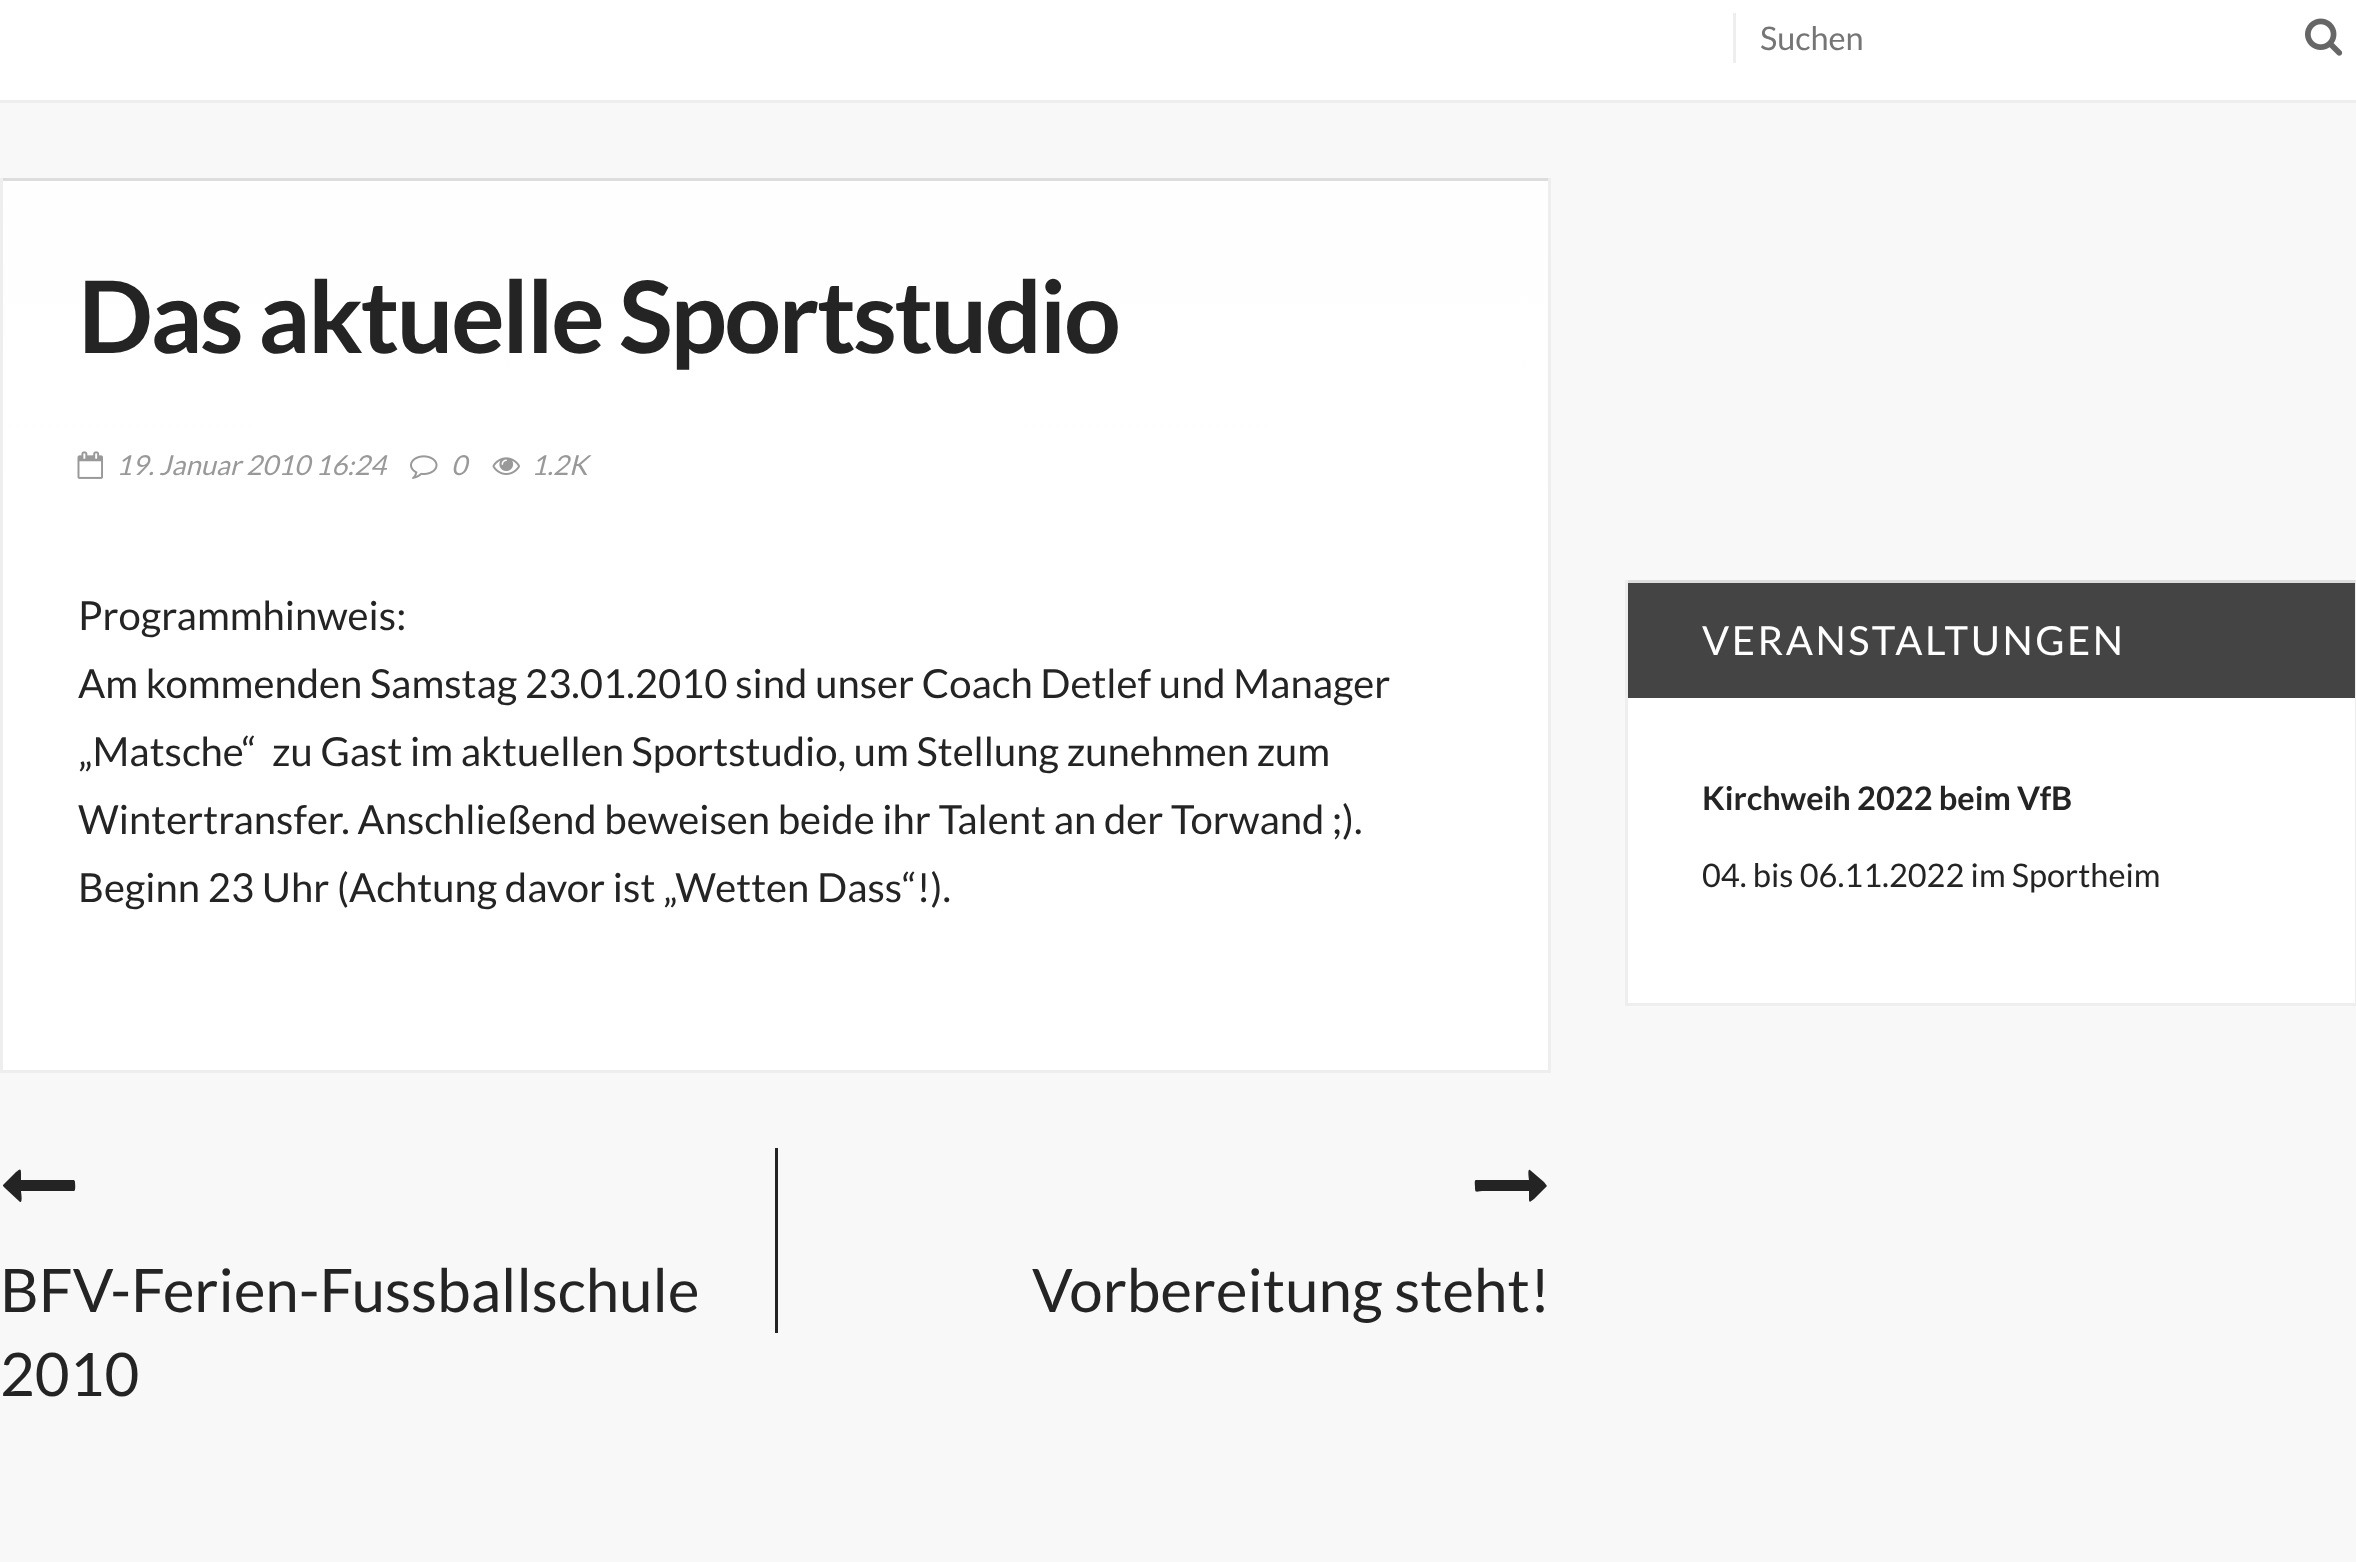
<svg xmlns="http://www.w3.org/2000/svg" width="2356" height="1562">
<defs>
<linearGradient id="g1" gradientUnits="userSpaceOnUse" x1="775" y1="180" x2="775" y2="505"><stop offset="0" stop-color="#fefefe"/><stop offset="1" stop-color="#fff"/></linearGradient>
</defs>
<rect width="100%" height="100%" fill="#f8f8f8"/>
<rect width="2356" height="100" fill="#fff"/>
<rect y="100" width="2356" height="3" fill="#eee"/>
<rect x="1733" y="13" width="3" height="50" fill="#eee"/>
<text x="1760" y="50" style="font-family:Lato;font-size:32.5px;fill:#757575">Suchen</text>
<image x="2305" y="18" width="38" height="38" href="media/1.png"/>
<rect x="3" y="181" width="1545" height="324" fill="url(#g1)"/>
<rect y="178" width="1550" height="3" fill="#ddd"/>
<rect x="1548" y="178" width="3" height="895" fill="#eee"/>
<rect y="178" width="3" height="327" fill="#eee"/>
<text x="78" y="353" style="font-family:Lato;font-size:100px;font-weight:bold;letter-spacing:-2.5px;fill:#242424">Das aktuelle Sportstudio</text>
<image x="77" y="451" width="26" height="28" href="media/2.png"/>
<text x="116" y="475" style="font-family:Lato;font-size:27.5px;font-style:italic;fill:#999">19. Januar 2010 16:24</text>
<image x="410" y="455" width="28" height="24" href="media/3.png"/>
<text x="451" y="475" style="font-family:Lato;font-size:27.5px;font-style:italic;fill:#999">0</text>
<image x="492" y="457" width="28" height="18" href="media/4.png"/>
<text x="531" y="475" style="font-family:Lato;font-size:27.5px;font-style:italic;fill:#999">1.2K</text>
<rect x="3" y="505" width="1545" height="565" fill="#fff"/>
<rect y="1070" width="1550" height="3" fill="#eee"/>
<rect y="505" width="3" height="568" fill="#eee"/>
<text x="78" y="630" style="font-family:Lato;font-size:40px;fill:#242424">Programmhinweis:</text>
<text x="78" y="698" style="font-family:Lato;font-size:40px;fill:#242424">Am kommenden Samstag 23.01.2010 sind unser Coach Detlef und Manager</text>
<text x="78" y="766" style="font-family:Lato;font-size:40px;fill:#242424" xml:space="preserve">„Matsche“  zu Gast im aktuellen Sportstudio, um Stellung zunehmen zum</text>
<text x="78" y="834" style="font-family:Lato;font-size:40px;fill:#242424">Wintertransfer. Anschließend beweisen beide ihr Talent an der Torwand ;).</text>
<text x="78" y="902" style="font-family:Lato;font-size:40px;fill:#242424">Beginn 23 Uhr (Achtung davor ist „Wetten Dass“!).</text>
<path d="M75 1182c0 1 1 9-1 9h-53c0 1 2 12-1 11l-14-13l-3-3v-1l13-13c3-2 5-5 5 1v7h53c0 0 1 1 1 2z" fill="#242424"/>
<text x="0" y="1312" style="font-family:Lato;font-size:60px;fill:#242424">BFV-Ferien-Fussballschule</text>
<text x="0" y="1396" style="font-family:Lato;font-size:60px;fill:#242424">2010</text>
<rect x="775" y="1148" width="3" height="185" fill="#242424"/>
<path d="M1547 1186l-13 13c-3 2-5 5-5 0v-8h-44c-9 0-10 3-10-4c0-2-1-7 1-7h53c0-1-2-12 1-10l14 12z" fill="#242424"/>
<text x="1032" y="1312" style="font-family:Lato;font-size:60px;fill:#242424">Vorbereitung steht!</text>
<rect x="1628" y="698" width="727" height="305" fill="#fff"/>
<rect x="1625" y="580" width="731" height="3" fill="#ddd"/>
<rect x="2355" y="580" width="1" height="425" fill="#eee"/>
<rect x="1625" y="1003" width="731" height="3" fill="#eee"/>
<rect x="1625" y="580" width="3" height="425" fill="#eee"/>
<rect x="1628" y="583" width="727" height="115" fill="#444"/>
<text x="1702" y="655" style="font-family:Lato;font-size:40px;letter-spacing:2.5px;fill:#fff">VERANSTALTUNGEN</text>
<text x="1702" y="810" style="font-family:Lato;font-size:32.5px;font-weight:bold;fill:#242424">Kirchweih 2022 beim VfB</text>
<text x="1702" y="887" style="font-family:Lato;font-size:32.5px;fill:#242424">04. bis 06.11.2022 im Sportheim</text>
</svg>
